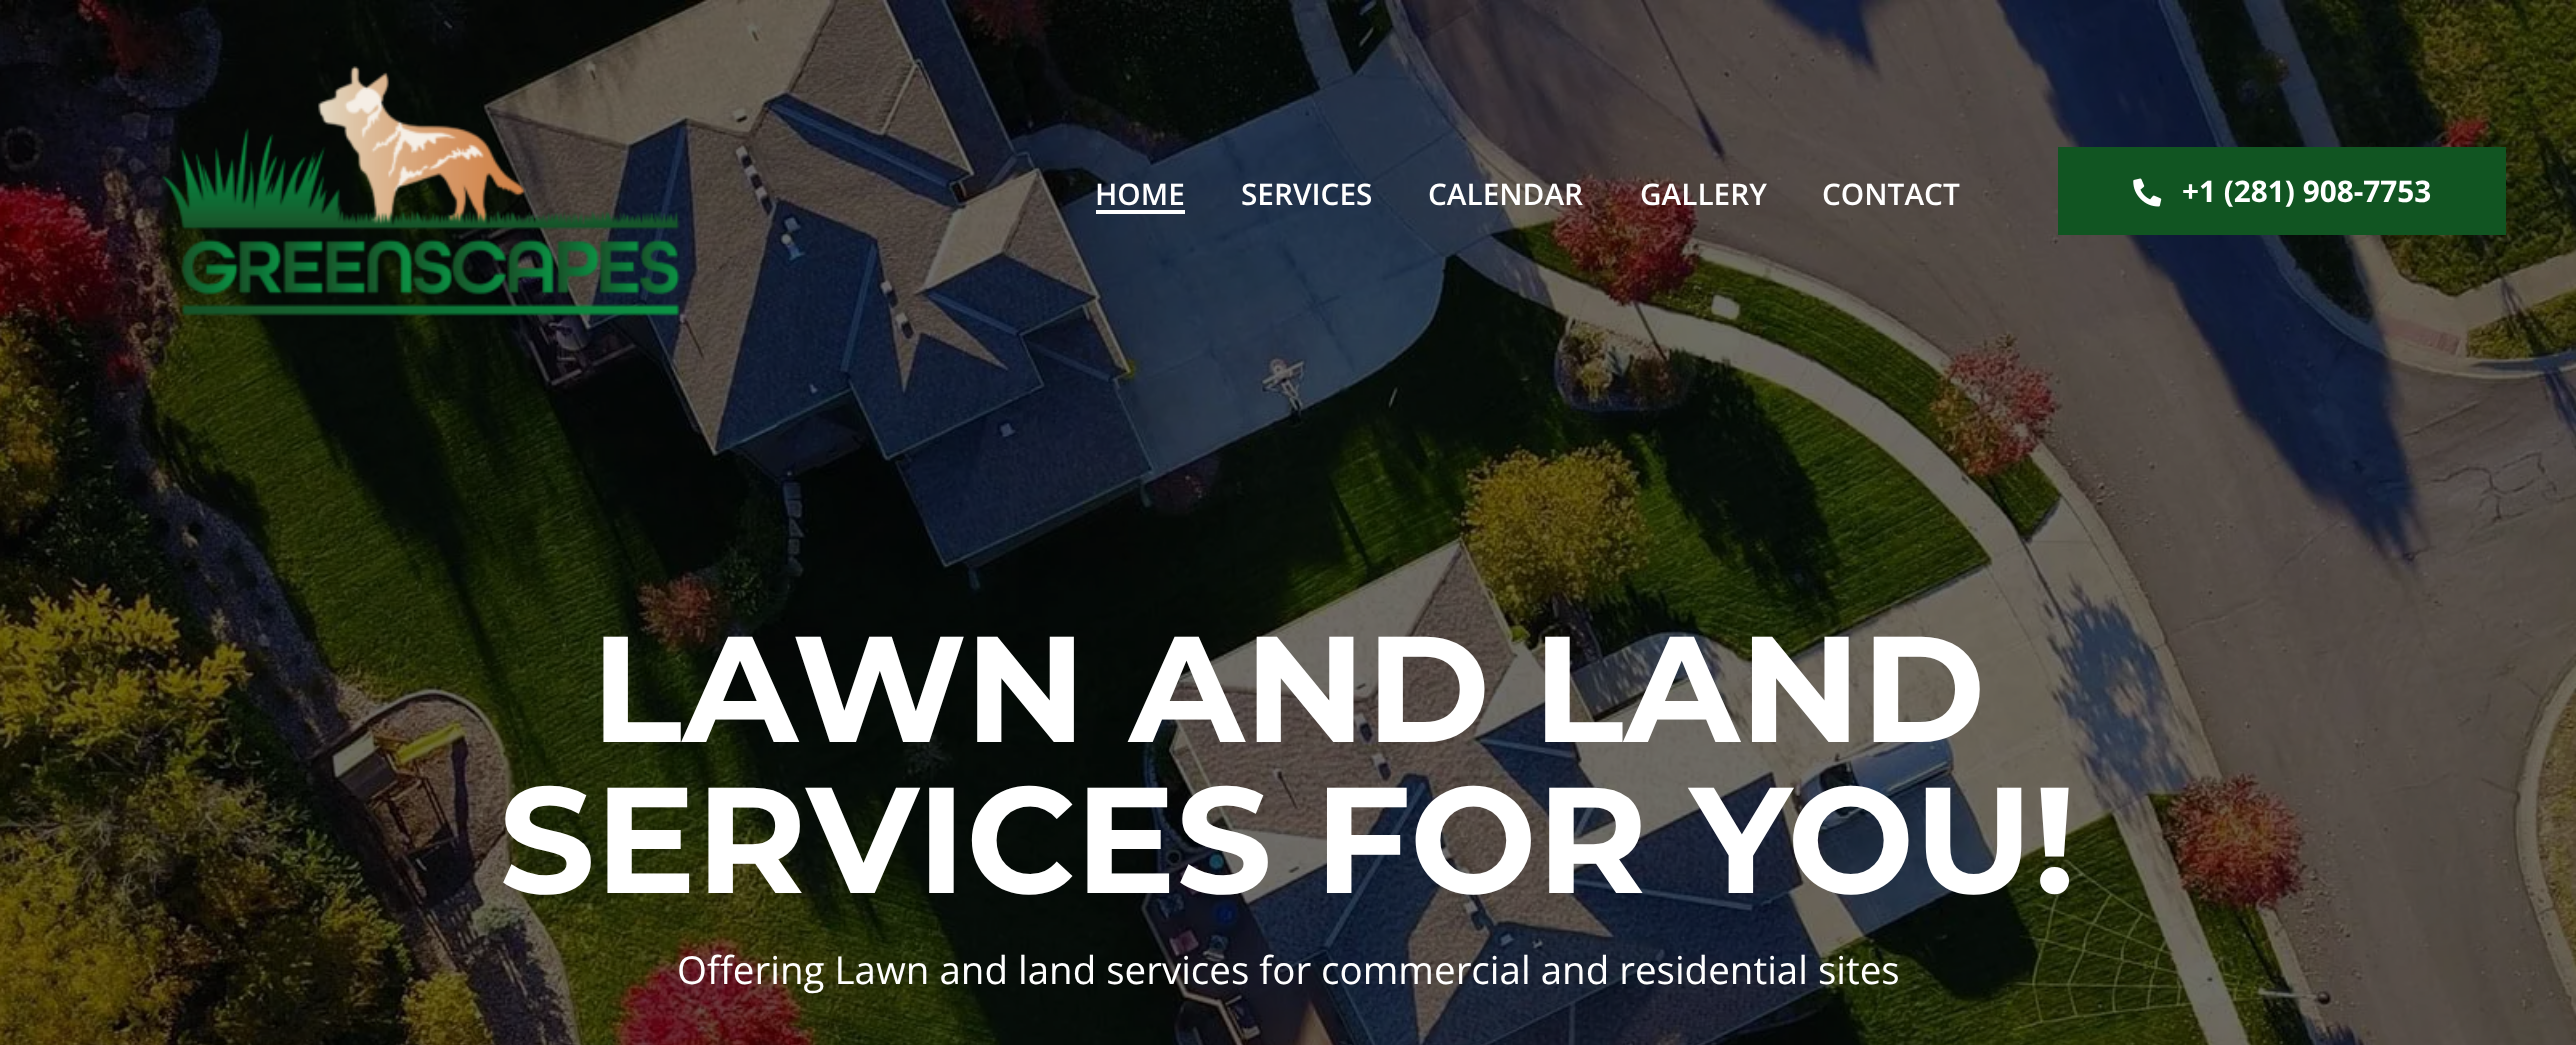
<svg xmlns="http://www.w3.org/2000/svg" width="2576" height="1045">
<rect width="100%" height="100%" fill="#fff"/>
<image x="0" y="0" width="2576" height="1045" href="media/3.png"/>
<image x="161" y="66" width="519" height="250" href="media/1.png"/>
<rect x="1096" y="210" width="89" height="4" fill="#fff"/>
<text x="1095" y="205" style="font-family:Open Sans;font-size:29.75px;font-weight:600;fill:#fff">HOME</text>
<text x="1241" y="205" style="font-family:Open Sans;font-size:29.75px;font-weight:600;fill:#fff">SERVICES</text>
<text x="1428" y="205" style="font-family:Open Sans;font-size:29.75px;font-weight:600;fill:#fff">CALENDAR</text>
<text x="1640" y="205" style="font-family:Open Sans;font-size:29.75px;font-weight:600;fill:#fff">GALLERY</text>
<text x="1822" y="205" style="font-family:Open Sans;font-size:29.75px;font-weight:600;fill:#fff">CONTACT</text>
<rect x="2058" y="147" width="448" height="88" fill="#152"/>
<image x="2133" y="178" width="29" height="29" href="media/2.png"/>
<text x="2182" y="202" style="font-family:Open Sans;font-size:29.75px;font-weight:bold;fill:#fff">+1 (281) 908-7753</text>
<text x="591" y="742" style="font-family:Montserrat;font-size:150.5px;font-weight:100;fill:#fff">LAWN AND LAND</text>
<text x="499" y="893" style="font-family:Montserrat;font-size:150.5px;font-weight:100;fill:#fff">SERVICES FOR YOU!</text>
<text x="677" y="984" style="font-family:Open Sans;font-size:38.5px;fill:#fff">Offering Lawn and land services for commercial and residential sites</text>
</svg>
